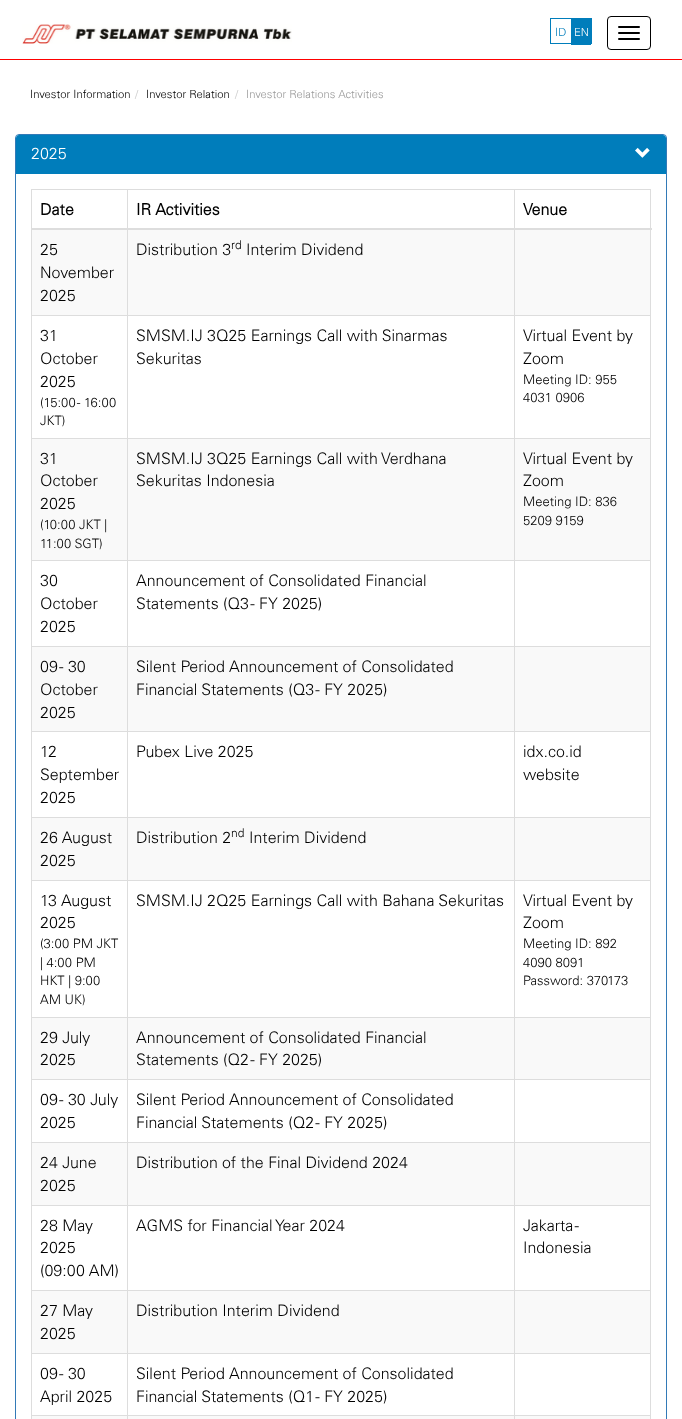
<svg xmlns="http://www.w3.org/2000/svg" width="682" height="1419">
<rect width="100%" height="100%" fill="#fff"/>
<rect y="59" width="682" height="1" fill="#f00"/>
<image x="22" y="24" width="270" height="20" href="media/1.png"/>
<rect x="550.5" y="18.5" width="41" height="25" fill="none" stroke="#007dbb"/>
<text x="555" y="36" style="font-family:'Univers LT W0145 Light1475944';font-size:11.25px;font-weight:300;fill:#007dbb">ID</text>
<rect x="571" y="19" width="20" height="26" fill="#007dbb"/>
<text x="574" y="36" style="font-family:'Univers LT W0145 Light1475944';font-size:11.25px;font-weight:300;fill:#fff">EN</text>
<rect x="607.5" y="16.5" width="43" height="33" rx="3.5" fill="none" stroke="#000"/>
<rect x="618" y="26" width="22" height="2" rx="1" fill="#000"/>
<rect x="618" y="32" width="22" height="2" rx="1" fill="#000"/>
<rect x="618" y="38" width="22" height="2" rx="1" fill="#000"/>
<text x="30" y="98" style="font-family:'Univers LT W0145 Light1475944';font-size:11.25px;font-weight:300;fill:#000">Investor Information</text>
<text x="135" y="98" style="font-family:'Univers LT W0145 Light1475944';font-size:11.25px;font-weight:300;fill:#ccc">/</text>
<text x="146" y="98" style="font-family:'Univers LT W0145 Light1475944';font-size:11.25px;font-weight:300;fill:#000">Investor Relation</text>
<text x="235" y="98" style="font-family:'Univers LT W0145 Light1475944';font-size:11.25px;font-weight:300;fill:#ccc">/</text>
<text x="246" y="98" style="font-family:'Univers LT W0145 Light1475944';font-size:11.25px;font-weight:300;fill:#999">Investor Relations Activities</text>
<rect x="15.5" y="134.5" width="651" height="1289" rx="3.5" fill="none" stroke="#337ab7"/>
<path d="M19 135h644c1.5 0 3 1.5 3 3v36h-650v-36c0-1.5 1.5-3 3-3z" fill="#007dbb"/>
<text x="31" y="159" style="font-family:'Univers LT W0145 Light1475944';font-size:16px;font-weight:300;fill:#fff">2025</text>
<image x="635" y="147" width="15" height="11" href="media/2.png"/>
<rect x="31" y="189" width="620" height="1" fill="#ddd"/>
<rect x="32" y="1416" width="619" height="3" fill="#f9f9f9"/>
<rect x="650" y="189" width="1" height="1230" fill="#ddd"/>
<rect x="31" y="189" width="1" height="1230" fill="#ddd"/>
<text x="40" y="215" style="font-family:'Univers LT W0145 Light1475944';font-size:16px;font-weight:bold;fill:#000">Date</text>
<text x="136" y="215" style="font-family:'Univers LT W0145 Light1475944';font-size:16px;font-weight:bold;fill:#000">IR Activities</text>
<rect x="32" y="230" width="618" height="85" fill="#f9f9f9"/>
<rect x="514" y="315" width="137" height="1" fill="#ddd"/>
<rect x="514" y="438" width="137" height="1" fill="#ddd"/>
<rect x="32" y="439" width="618" height="121" fill="#f9f9f9"/>
<rect x="514" y="560" width="137" height="1" fill="#ddd"/>
<rect x="514" y="646" width="137" height="1" fill="#ddd"/>
<rect x="32" y="647" width="618" height="84" fill="#f9f9f9"/>
<rect x="514" y="731" width="137" height="1" fill="#ddd"/>
<rect x="514" y="817" width="137" height="1" fill="#ddd"/>
<rect x="32" y="818" width="618" height="62" fill="#f9f9f9"/>
<rect x="514" y="880" width="137" height="1" fill="#ddd"/>
<rect x="514" y="1017" width="137" height="1" fill="#ddd"/>
<rect x="32" y="1018" width="618" height="61" fill="#f9f9f9"/>
<rect x="514" y="1079" width="137" height="1" fill="#ddd"/>
<rect x="514" y="1142" width="137" height="1" fill="#ddd"/>
<rect x="32" y="1143" width="618" height="62" fill="#f9f9f9"/>
<rect x="514" y="1205" width="137" height="1" fill="#ddd"/>
<rect x="514" y="1290" width="137" height="1" fill="#ddd"/>
<rect x="32" y="1291" width="618" height="62" fill="#f9f9f9"/>
<rect x="514" y="1353" width="137" height="1" fill="#ddd"/>
<rect x="514" y="1415" width="137" height="1" fill="#ddd"/>
<rect x="514" y="1415" width="1" height="4" fill="#ddd"/>
<rect x="127" y="1415" width="388" height="1" fill="#ddd"/>
<rect x="514" y="1353" width="1" height="63" fill="#ddd"/>
<rect x="127" y="1353" width="388" height="1" fill="#ddd"/>
<rect x="514" y="1290" width="1" height="64" fill="#ddd"/>
<rect x="127" y="1290" width="388" height="1" fill="#ddd"/>
<rect x="514" y="1205" width="1" height="86" fill="#ddd"/>
<rect x="127" y="1205" width="388" height="1" fill="#ddd"/>
<rect x="514" y="1142" width="1" height="64" fill="#ddd"/>
<rect x="127" y="1142" width="388" height="1" fill="#ddd"/>
<rect x="514" y="1079" width="1" height="64" fill="#ddd"/>
<rect x="127" y="1079" width="388" height="1" fill="#ddd"/>
<rect x="514" y="1017" width="1" height="63" fill="#ddd"/>
<rect x="127" y="1017" width="388" height="1" fill="#ddd"/>
<rect x="514" y="880" width="1" height="138" fill="#ddd"/>
<rect x="127" y="880" width="388" height="1" fill="#ddd"/>
<rect x="514" y="817" width="1" height="64" fill="#ddd"/>
<rect x="127" y="817" width="388" height="1" fill="#ddd"/>
<rect x="514" y="731" width="1" height="87" fill="#ddd"/>
<rect x="127" y="731" width="388" height="1" fill="#ddd"/>
<rect x="514" y="646" width="1" height="86" fill="#ddd"/>
<rect x="127" y="646" width="388" height="1" fill="#ddd"/>
<rect x="514" y="560" width="1" height="87" fill="#ddd"/>
<rect x="127" y="560" width="388" height="1" fill="#ddd"/>
<rect x="514" y="438" width="1" height="123" fill="#ddd"/>
<rect x="127" y="438" width="388" height="1" fill="#ddd"/>
<rect x="514" y="315" width="1" height="124" fill="#ddd"/>
<rect x="127" y="315" width="388" height="1" fill="#ddd"/>
<rect x="127" y="1415" width="1" height="4" fill="#ddd"/>
<rect x="31" y="1415" width="97" height="1" fill="#ddd"/>
<rect x="127" y="1353" width="1" height="63" fill="#ddd"/>
<rect x="31" y="1353" width="97" height="1" fill="#ddd"/>
<rect x="127" y="1290" width="1" height="64" fill="#ddd"/>
<rect x="31" y="1290" width="97" height="1" fill="#ddd"/>
<rect x="127" y="1205" width="1" height="86" fill="#ddd"/>
<rect x="31" y="1205" width="97" height="1" fill="#ddd"/>
<rect x="127" y="1142" width="1" height="64" fill="#ddd"/>
<rect x="31" y="1142" width="97" height="1" fill="#ddd"/>
<rect x="127" y="1079" width="1" height="64" fill="#ddd"/>
<rect x="31" y="1079" width="97" height="1" fill="#ddd"/>
<rect x="127" y="1017" width="1" height="63" fill="#ddd"/>
<rect x="31" y="1017" width="97" height="1" fill="#ddd"/>
<rect x="127" y="880" width="1" height="138" fill="#ddd"/>
<rect x="31" y="880" width="97" height="1" fill="#ddd"/>
<rect x="127" y="817" width="1" height="64" fill="#ddd"/>
<rect x="31" y="817" width="97" height="1" fill="#ddd"/>
<rect x="127" y="731" width="1" height="87" fill="#ddd"/>
<rect x="31" y="731" width="97" height="1" fill="#ddd"/>
<rect x="127" y="646" width="1" height="86" fill="#ddd"/>
<rect x="31" y="646" width="97" height="1" fill="#ddd"/>
<rect x="127" y="560" width="1" height="87" fill="#ddd"/>
<rect x="31" y="560" width="97" height="1" fill="#ddd"/>
<rect x="127" y="438" width="1" height="123" fill="#ddd"/>
<rect x="31" y="438" width="97" height="1" fill="#ddd"/>
<rect x="127" y="315" width="1" height="124" fill="#ddd"/>
<rect x="31" y="315" width="97" height="1" fill="#ddd"/>
<rect x="127" y="189" width="1" height="127" fill="#ddd"/>
<rect x="514" y="189" width="1" height="127" fill="#ddd"/>
<rect x="31" y="228" width="621" height="2" fill="#ddd"/>
<text x="523" y="215" style="font-family:'Univers LT W0145 Light1475944';font-size:16px;font-weight:bold;fill:#000">Venue</text>
<text x="40" y="255" style="font-family:'Univers LT W0145 Light1475944';font-size:16px;font-weight:300;fill:#000">25</text>
<text x="40" y="278" style="font-family:'Univers LT W0145 Light1475944';font-size:16px;font-weight:300;fill:#000">November</text>
<text x="40" y="301" style="font-family:'Univers LT W0145 Light1475944';font-size:16px;font-weight:300;fill:#000">2025</text>
<text x="136" y="255" style="font-family:'Univers LT W0145 Light1475944';font-size:16px;font-weight:300;fill:#000">Distribution 3</text>
<text x="231" y="249" style="font-family:'Univers LT W0145 Light1475944';font-size:12px;font-weight:300;fill:#000">rd</text>
<text x="246" y="255" style="font-family:'Univers LT W0145 Light1475944';font-size:16px;font-weight:300;fill:#000">Interim Dividend</text>
<text x="40" y="341" style="font-family:'Univers LT W0145 Light1475944';font-size:16px;font-weight:300;fill:#000">31</text>
<text x="40" y="364" style="font-family:'Univers LT W0145 Light1475944';font-size:16px;font-weight:300;fill:#000">October</text>
<text x="40" y="387" style="font-family:'Univers LT W0145 Light1475944';font-size:16px;font-weight:300;fill:#000">2025</text>
<text x="40" y="407" style="font-family:'Univers LT W0145 Light1475944';font-size:13px;font-weight:300;fill:#000">(15:00 - 16:00</text>
<text x="40" y="425" style="font-family:'Univers LT W0145 Light1475944';font-size:13px;font-weight:300;fill:#000">JKT)</text>
<text x="136" y="341" style="font-family:'Univers LT W0145 Light1475944';font-size:16px;font-weight:300;fill:#000">SMSM.IJ 3Q25 Earnings Call with Sinarmas</text>
<text x="136" y="364" style="font-family:'Univers LT W0145 Light1475944';font-size:16px;font-weight:300;fill:#000">Sekuritas</text>
<text x="523" y="341" style="font-family:'Univers LT W0145 Light1475944';font-size:16px;font-weight:300;fill:#000">Virtual Event by</text>
<text x="523" y="364" style="font-family:'Univers LT W0145 Light1475944';font-size:16px;font-weight:300;fill:#000">Zoom</text>
<text x="523" y="384" style="font-family:'Univers LT W0145 Light1475944';font-size:13px;font-weight:300;fill:#000">Meeting ID: 955</text>
<text x="523" y="402" style="font-family:'Univers LT W0145 Light1475944';font-size:13px;font-weight:300;fill:#000">4031 0906</text>
<text x="40" y="464" style="font-family:'Univers LT W0145 Light1475944';font-size:16px;font-weight:300;fill:#000">31</text>
<text x="40" y="486" style="font-family:'Univers LT W0145 Light1475944';font-size:16px;font-weight:300;fill:#000">October</text>
<text x="40" y="509" style="font-family:'Univers LT W0145 Light1475944';font-size:16px;font-weight:300;fill:#000">2025</text>
<text x="40" y="529" style="font-family:'Univers LT W0145 Light1475944';font-size:13px;font-weight:300;fill:#000">(10:00 JKT |</text>
<text x="40" y="548" style="font-family:'Univers LT W0145 Light1475944';font-size:13px;font-weight:300;fill:#000">11:00 SGT)</text>
<text x="136" y="464" style="font-family:'Univers LT W0145 Light1475944';font-size:16px;font-weight:300;fill:#000">SMSM.IJ 3Q25 Earnings Call with Verdhana</text>
<text x="136" y="486" style="font-family:'Univers LT W0145 Light1475944';font-size:16px;font-weight:300;fill:#000">Sekuritas Indonesia</text>
<text x="523" y="464" style="font-family:'Univers LT W0145 Light1475944';font-size:16px;font-weight:300;fill:#000">Virtual Event by</text>
<text x="523" y="486" style="font-family:'Univers LT W0145 Light1475944';font-size:16px;font-weight:300;fill:#000">Zoom</text>
<text x="523" y="506" style="font-family:'Univers LT W0145 Light1475944';font-size:13px;font-weight:300;fill:#000">Meeting ID: 836</text>
<text x="523" y="525" style="font-family:'Univers LT W0145 Light1475944';font-size:13px;font-weight:300;fill:#000">5209 9159</text>
<text x="40" y="586" style="font-family:'Univers LT W0145 Light1475944';font-size:16px;font-weight:300;fill:#000">30</text>
<text x="40" y="609" style="font-family:'Univers LT W0145 Light1475944';font-size:16px;font-weight:300;fill:#000">October</text>
<text x="40" y="632" style="font-family:'Univers LT W0145 Light1475944';font-size:16px;font-weight:300;fill:#000">2025</text>
<text x="136" y="586" style="font-family:'Univers LT W0145 Light1475944';font-size:16px;font-weight:300;fill:#000">Announcement of Consolidated Financial</text>
<text x="136" y="609" style="font-family:'Univers LT W0145 Light1475944';font-size:16px;font-weight:300;fill:#000">Statements (Q3 - FY 2025)</text>
<text x="40" y="672" style="font-family:'Univers LT W0145 Light1475944';font-size:16px;font-weight:300;fill:#000">09 - 30</text>
<text x="40" y="695" style="font-family:'Univers LT W0145 Light1475944';font-size:16px;font-weight:300;fill:#000">October</text>
<text x="40" y="718" style="font-family:'Univers LT W0145 Light1475944';font-size:16px;font-weight:300;fill:#000">2025</text>
<text x="136" y="672" style="font-family:'Univers LT W0145 Light1475944';font-size:16px;font-weight:300;fill:#000">Silent Period Announcement of Consolidated</text>
<text x="136" y="695" style="font-family:'Univers LT W0145 Light1475944';font-size:16px;font-weight:300;fill:#000">Financial Statements (Q3 - FY 2025)</text>
<text x="40" y="757" style="font-family:'Univers LT W0145 Light1475944';font-size:16px;font-weight:300;fill:#000">12</text>
<text x="40" y="780" style="font-family:'Univers LT W0145 Light1475944';font-size:16px;font-weight:300;fill:#000">September</text>
<text x="40" y="803" style="font-family:'Univers LT W0145 Light1475944';font-size:16px;font-weight:300;fill:#000">2025</text>
<text x="136" y="757" style="font-family:'Univers LT W0145 Light1475944';font-size:16px;font-weight:300;fill:#000">Pubex Live 2025</text>
<text x="523" y="757" style="font-family:'Univers LT W0145 Light1475944';font-size:16px;font-weight:300;fill:#000">idx.co.id</text>
<text x="523" y="780" style="font-family:'Univers LT W0145 Light1475944';font-size:16px;font-weight:300;fill:#000">website</text>
<text x="40" y="843" style="font-family:'Univers LT W0145 Light1475944';font-size:16px;font-weight:300;fill:#000">26 August</text>
<text x="40" y="866" style="font-family:'Univers LT W0145 Light1475944';font-size:16px;font-weight:300;fill:#000">2025</text>
<text x="136" y="843" style="font-family:'Univers LT W0145 Light1475944';font-size:16px;font-weight:300;fill:#000">Distribution 2</text>
<text x="231" y="837" style="font-family:'Univers LT W0145 Light1475944';font-size:12px;font-weight:300;fill:#000">nd</text>
<text x="249" y="843" style="font-family:'Univers LT W0145 Light1475944';font-size:16px;font-weight:300;fill:#000">Interim Dividend</text>
<text x="40" y="906" style="font-family:'Univers LT W0145 Light1475944';font-size:16px;font-weight:300;fill:#000">13 August</text>
<text x="40" y="928" style="font-family:'Univers LT W0145 Light1475944';font-size:16px;font-weight:300;fill:#000">2025</text>
<text x="40" y="948" style="font-family:'Univers LT W0145 Light1475944';font-size:13px;font-weight:300;fill:#000">(3:00 PM JKT</text>
<text x="40" y="967" style="font-family:'Univers LT W0145 Light1475944';font-size:13px;font-weight:300;fill:#000">| 4:00 PM</text>
<text x="40" y="985" style="font-family:'Univers LT W0145 Light1475944';font-size:13px;font-weight:300;fill:#000">HKT | 9:00</text>
<text x="40" y="1004" style="font-family:'Univers LT W0145 Light1475944';font-size:13px;font-weight:300;fill:#000">AM UK)</text>
<text x="136" y="906" style="font-family:'Univers LT W0145 Light1475944';font-size:16px;font-weight:300;fill:#000">SMSM.IJ 2Q25 Earnings Call with Bahana Sekuritas</text>
<text x="523" y="906" style="font-family:'Univers LT W0145 Light1475944';font-size:16px;font-weight:300;fill:#000">Virtual Event by</text>
<text x="523" y="928" style="font-family:'Univers LT W0145 Light1475944';font-size:16px;font-weight:300;fill:#000">Zoom</text>
<text x="523" y="948" style="font-family:'Univers LT W0145 Light1475944';font-size:13px;font-weight:300;fill:#000">Meeting ID: 892</text>
<text x="523" y="967" style="font-family:'Univers LT W0145 Light1475944';font-size:13px;font-weight:300;fill:#000">4090 8091</text>
<text x="523" y="985" style="font-family:'Univers LT W0145 Light1475944';font-size:13px;font-weight:300;fill:#000">Password: 370173</text>
<text x="40" y="1043" style="font-family:'Univers LT W0145 Light1475944';font-size:16px;font-weight:300;fill:#000">29 July</text>
<text x="40" y="1065" style="font-family:'Univers LT W0145 Light1475944';font-size:16px;font-weight:300;fill:#000">2025</text>
<text x="136" y="1043" style="font-family:'Univers LT W0145 Light1475944';font-size:16px;font-weight:300;fill:#000">Announcement of Consolidated Financial</text>
<text x="136" y="1065" style="font-family:'Univers LT W0145 Light1475944';font-size:16px;font-weight:300;fill:#000">Statements (Q2 - FY 2025)</text>
<text x="40" y="1105" style="font-family:'Univers LT W0145 Light1475944';font-size:16px;font-weight:300;fill:#000">09 - 30 July</text>
<text x="40" y="1128" style="font-family:'Univers LT W0145 Light1475944';font-size:16px;font-weight:300;fill:#000">2025</text>
<text x="136" y="1105" style="font-family:'Univers LT W0145 Light1475944';font-size:16px;font-weight:300;fill:#000">Silent Period Announcement of Consolidated</text>
<text x="136" y="1128" style="font-family:'Univers LT W0145 Light1475944';font-size:16px;font-weight:300;fill:#000">Financial Statements (Q2 - FY 2025)</text>
<text x="40" y="1168" style="font-family:'Univers LT W0145 Light1475944';font-size:16px;font-weight:300;fill:#000">24 June</text>
<text x="40" y="1191" style="font-family:'Univers LT W0145 Light1475944';font-size:16px;font-weight:300;fill:#000">2025</text>
<text x="136" y="1168" style="font-family:'Univers LT W0145 Light1475944';font-size:16px;font-weight:300;fill:#000">Distribution of the Final Dividend 2024</text>
<text x="40" y="1231" style="font-family:'Univers LT W0145 Light1475944';font-size:16px;font-weight:300;fill:#000">28 May</text>
<text x="40" y="1253" style="font-family:'Univers LT W0145 Light1475944';font-size:16px;font-weight:300;fill:#000">2025</text>
<text x="40" y="1276" style="font-family:'Univers LT W0145 Light1475944';font-size:16px;font-weight:300;fill:#000">(09:00 AM)</text>
<text x="136" y="1231" style="font-family:'Univers LT W0145 Light1475944';font-size:16px;font-weight:300;fill:#000">AGMS for Financial Year 2024</text>
<text x="523" y="1231" style="font-family:'Univers LT W0145 Light1475944';font-size:16px;font-weight:300;fill:#000">Jakarta -</text>
<text x="523" y="1253" style="font-family:'Univers LT W0145 Light1475944';font-size:16px;font-weight:300;fill:#000">Indonesia</text>
<text x="40" y="1316" style="font-family:'Univers LT W0145 Light1475944';font-size:16px;font-weight:300;fill:#000">27 May</text>
<text x="40" y="1339" style="font-family:'Univers LT W0145 Light1475944';font-size:16px;font-weight:300;fill:#000">2025</text>
<text x="136" y="1316" style="font-family:'Univers LT W0145 Light1475944';font-size:16px;font-weight:300;fill:#000">Distribution Interim Dividend</text>
<text x="40" y="1379" style="font-family:'Univers LT W0145 Light1475944';font-size:16px;font-weight:300;fill:#000">09 - 30</text>
<text x="40" y="1402" style="font-family:'Univers LT W0145 Light1475944';font-size:16px;font-weight:300;fill:#000">April 2025</text>
<text x="136" y="1379" style="font-family:'Univers LT W0145 Light1475944';font-size:16px;font-weight:300;fill:#000">Silent Period Announcement of Consolidated</text>
<text x="136" y="1402" style="font-family:'Univers LT W0145 Light1475944';font-size:16px;font-weight:300;fill:#000">Financial Statements (Q1 - FY 2025)</text>
</svg>
